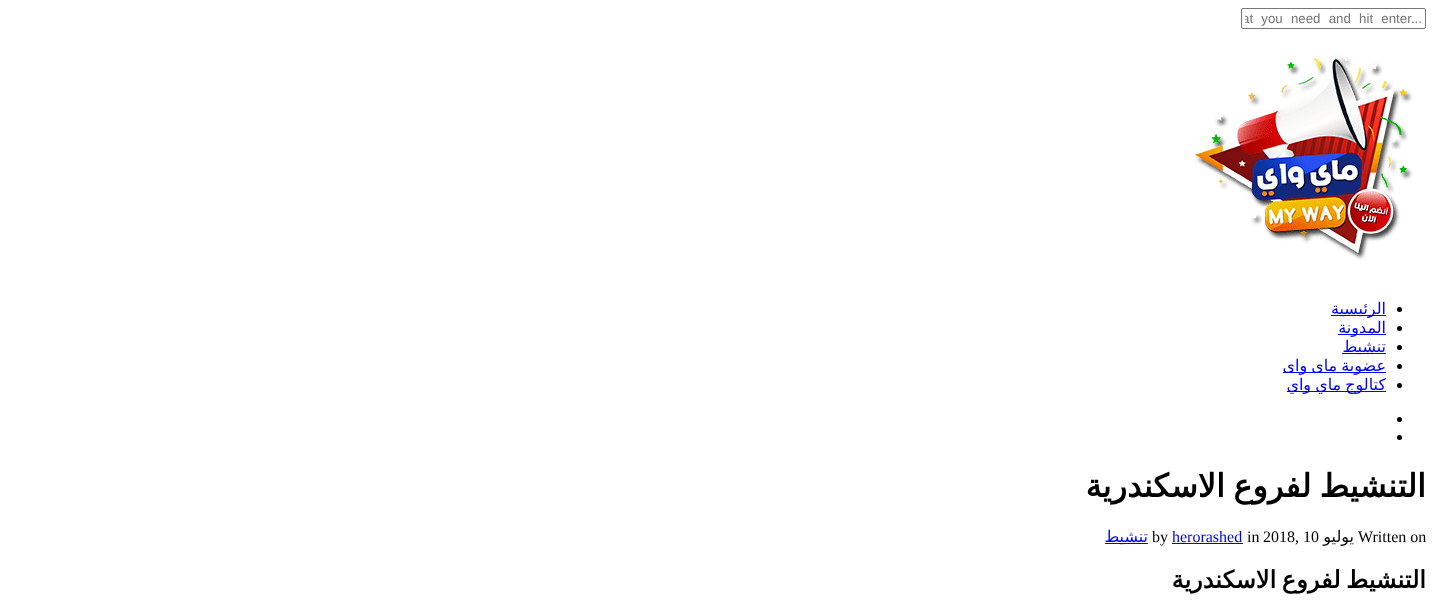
<svg xmlns="http://www.w3.org/2000/svg" width="1434" height="612">
<defs>
<clipPath id="clip1"><rect x="1245" y="11" width="177" height="15"/></clipPath>
</defs>
<rect width="100%" height="100%" fill="#fff"/>
<rect x="1241.5" y="8.5" width="184" height="20" rx="1.5" fill="none" stroke="#767676"/>
<g clip-path="url(#clip1)">
<text x="1242" y="23" word-spacing="4.5" style="font-family:Liberation Sans;font-size:13.3px;fill:#757575">at you need and hit enter...</text>
</g>
<image x="1195" y="55" width="218" height="205" href="media/1.png"/>
<circle cx="1399.5" cy="309.5" r="2.5" fill="#000"/>
<rect x="1331" y="315" width="55" height="1" fill="#00e"/>
<text x="1386" y="314" style="font-family:DejaVu Sans;font-size:16px;direction:rtl;fill:#00e">الرئيسية</text>
<circle cx="1399.5" cy="328.5" r="2.5" fill="#000"/>
<rect x="1338" y="334" width="48" height="1" fill="#00e"/>
<text x="1386" y="333" style="font-family:DejaVu Sans;font-size:16px;direction:rtl;fill:#00e">المدونة</text>
<circle cx="1399.5" cy="347.5" r="2.5" fill="#000"/>
<rect x="1342" y="353" width="44" height="1" fill="#00e"/>
<text x="1386" y="352" style="font-family:DejaVu Sans;font-size:16px;direction:rtl;fill:#00e">تنشيط</text>
<circle cx="1399.5" cy="366.5" r="2.5" fill="#000"/>
<rect x="1283" y="372" width="103" height="1" fill="#00e"/>
<text x="1386" y="371" word-spacing="-1" style="font-family:DejaVu Sans;font-size:16px;direction:rtl;fill:#00e">عضوية ماى واى</text>
<circle cx="1399.5" cy="385.5" r="2.5" fill="#000"/>
<rect x="1287" y="391" width="99" height="1" fill="#00e"/>
<text x="1386" y="390" word-spacing="-1" style="font-family:DejaVu Sans;font-size:16px;direction:rtl;fill:#00e">كتالوج ماي واي</text>
<circle cx="1399.5" cy="419.5" r="2.5" fill="#000"/>
<circle cx="1399.5" cy="437.5" r="2.5" fill="#000"/>
<text x="1426" y="497" word-spacing="-2" style="font-family:DejaVu Sans;font-size:32px;font-weight:bold;direction:rtl;fill:#000">التنشيط لفروع الاسكندرية</text>
<text x="1358" y="542" style="font-family:Liberation Serif;font-size:16px;fill:#000">Written on</text>
<text x="1354" y="542" style="font-family:DejaVu Sans;font-size:16px;direction:rtl;fill:#000">يوليو</text>
<text x="1263" y="542" style="font-family:Liberation Serif;font-size:16px;fill:#000">2018, 10</text>
<text x="1247" y="542" style="font-family:Liberation Serif;font-size:16px;fill:#000">in</text>
<text x="1172" y="542" style="font-family:Liberation Serif;font-size:16px;fill:#00e">herorashed</text>
<rect x="1172" y="543" width="71" height="1" fill="#00e"/>
<text x="1152" y="542" style="font-family:Liberation Serif;font-size:16px;fill:#000">by</text>
<rect x="1105" y="543" width="43" height="1" fill="#00e"/>
<text x="1148" y="542" style="font-family:DejaVu Sans;font-size:16px;direction:rtl;fill:#00e">تنشيط</text>
<text x="1426" y="588" word-spacing="-2" style="font-family:DejaVu Sans;font-size:24px;font-weight:bold;direction:rtl;fill:#000">التنشيط لفروع الاسكندرية</text>
</svg>
